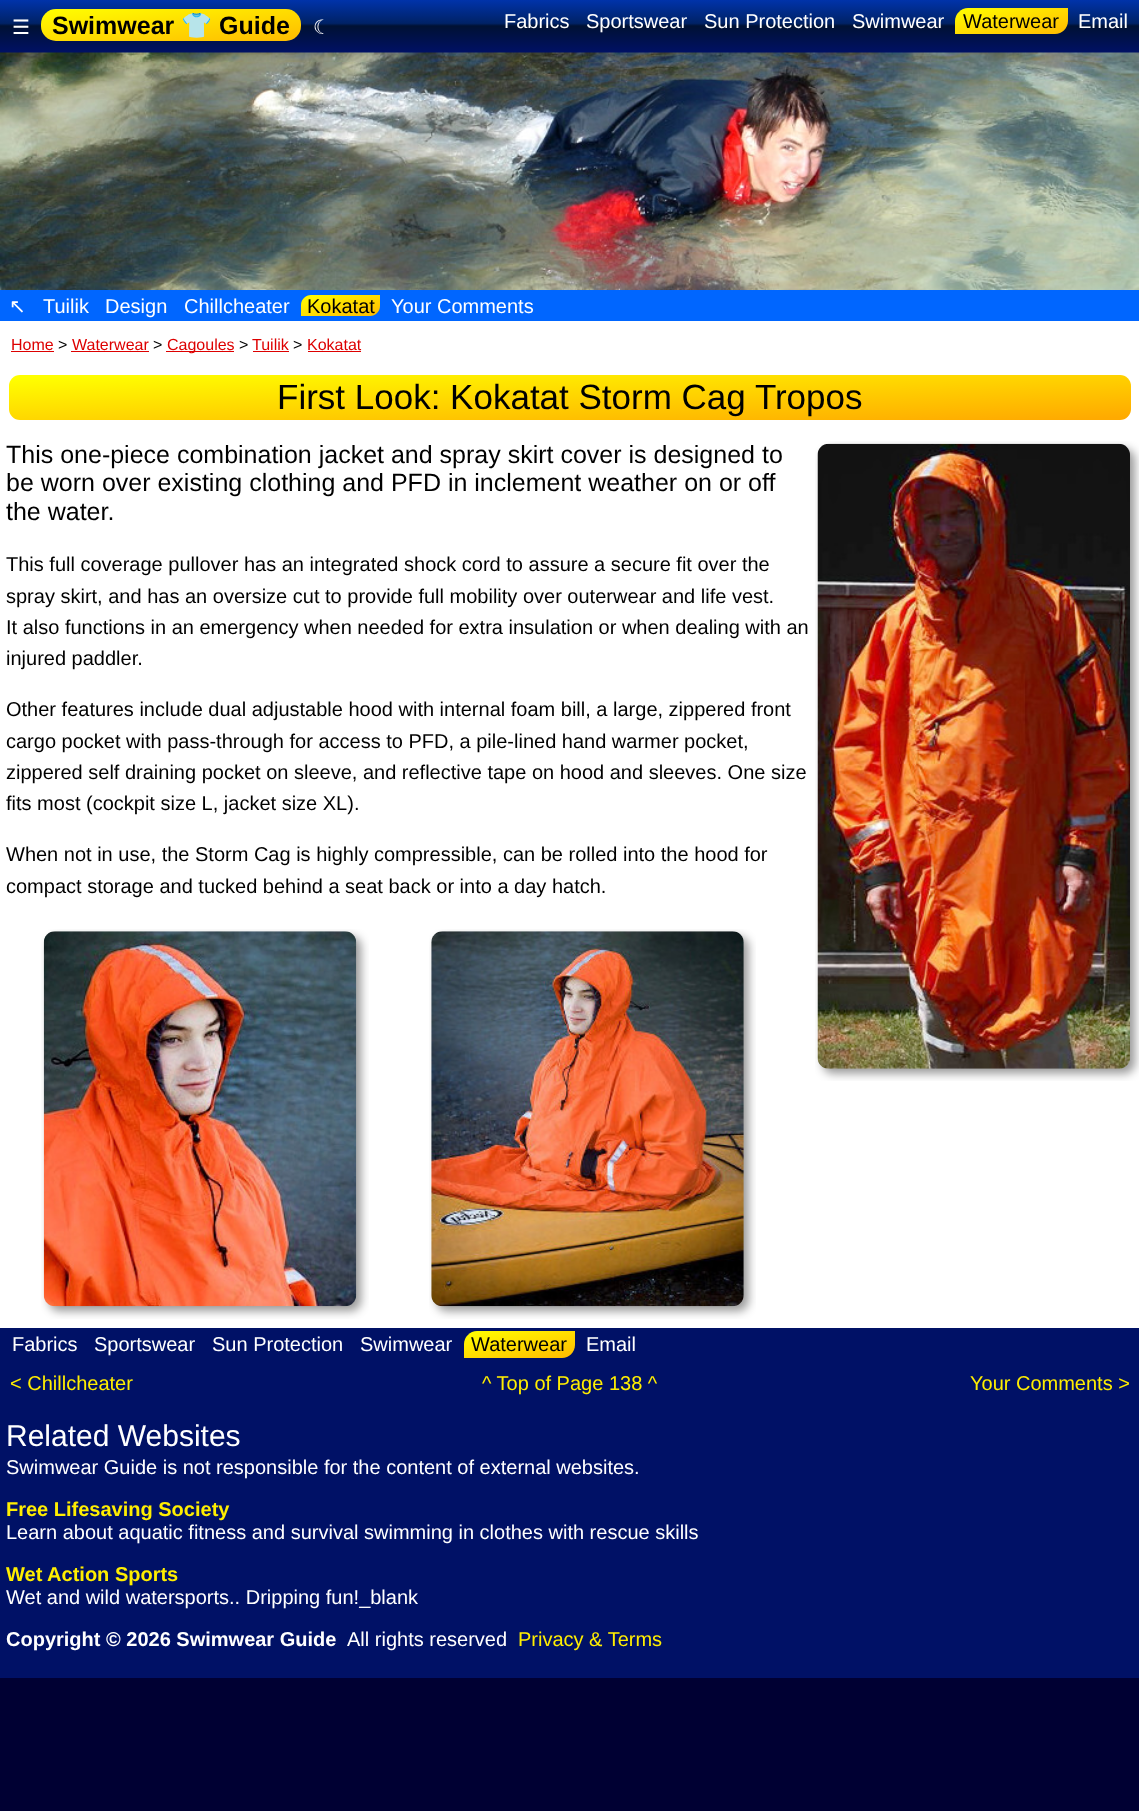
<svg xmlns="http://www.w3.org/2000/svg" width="1139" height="1811">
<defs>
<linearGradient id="g1" gradientUnits="userSpaceOnUse" x1="570" y1="0" x2="570" y2="53"><stop offset="0" stop-color="#03a"/><stop offset="0.44" stop-color="#026"/><stop offset="0.49" stop-color="#013"/><stop offset="1" stop-color="#016"/></linearGradient>
<linearGradient id="g2" gradientUnits="userSpaceOnUse" x1="167" y1="-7" x2="175" y2="57"><stop offset="0" stop-color="#ff0"/><stop offset="1" stop-color="#fb0"/></linearGradient>
<linearGradient id="g3" gradientUnits="userSpaceOnUse" x1="1005" y1="-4.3" x2="1017" y2="46"><stop offset="0" stop-color="#ff0"/><stop offset="1" stop-color="#fb0"/></linearGradient>
<linearGradient id="g4" gradientUnits="userSpaceOnUse" x1="335" y1="286" x2="346" y2="325"><stop offset="0" stop-color="#ff0"/><stop offset="1" stop-color="#fb0"/></linearGradient>
<linearGradient id="g5" gradientUnits="userSpaceOnUse" x1="568" y1="353" x2="572" y2="442"><stop offset="0" stop-color="#ff0"/><stop offset="1" stop-color="#fa0"/></linearGradient>
<linearGradient id="g6" gradientUnits="userSpaceOnUse" x1="514" y1="1320" x2="525" y2="1369"><stop offset="0" stop-color="#ff0"/><stop offset="1" stop-color="#fb0"/></linearGradient>
</defs>
<rect width="100%" height="100%" fill="#003"/>
<rect width="1139" height="53" fill="url(#g1)"/>
<text x="12" y="34" style="font-family:DejaVu Sans;font-size:20px;fill:#fff">☰</text>
<rect x="41" y="9" width="260" height="32" rx="15" fill="url(#g2)"/>
<text x="52" y="34" style="font-family:Liberation Sans;font-size:25px;font-weight:bold;fill:#000">Swimwear</text>
<text x="181" y="34" style="font-family:Noto Color Emoji;font-size:25px;font-weight:bold;fill:#000">👕</text>
<text x="219" y="34" style="font-family:Liberation Sans;font-size:25px;font-weight:bold;fill:#000">Guide</text>
<text x="313" y="34" style="font-family:DejaVu Sans;font-size:20px;fill:#fff">☾</text>
<text x="504" y="28" style="font-family:Liberation Sans;font-size:20px;fill:#fff">Fabrics</text>
<text x="586" y="28" style="font-family:Liberation Sans;font-size:20px;fill:#fff">Sportswear</text>
<text x="704" y="28" style="font-family:Liberation Sans;font-size:20px;fill:#fff">Sun Protection</text>
<text x="852" y="28" style="font-family:Liberation Sans;font-size:20px;fill:#fff">Swimwear</text>
<path d="M968 8h100v13c0 7-6 13-13 13h-100v-13c0-7 6-13 13-13z" fill="url(#g3)"/>
<text x="963" y="28" style="font-family:Liberation Sans;font-size:20px;fill:#000">Waterwear</text>
<text x="1078" y="28" style="font-family:Liberation Sans;font-size:20px;fill:#fff">Email</text>
<image x="0" y="52" width="1139" height="238" href="media/1.png"/>
<rect y="290" width="1139" height="31" fill="#06f"/>
<text x="9" y="313" style="font-family:DejaVu Sans;font-size:20px;fill:#fff">↖</text>
<text x="43" y="313" style="font-family:Liberation Sans;font-size:20px;fill:#fff">Tuilik</text>
<text x="105" y="313" style="font-family:Liberation Sans;font-size:20px;fill:#fff">Design</text>
<text x="184" y="313" style="font-family:Liberation Sans;font-size:20px;fill:#fff">Chillcheater</text>
<path d="M311 295h69v11c0 5.5-4.5 10-10 10h-69v-11c0-5.5 4.5-10 10-10z" fill="url(#g4)"/>
<text x="307" y="313" style="font-family:Liberation Sans;font-size:20px;fill:#000">Kokatat</text>
<text x="391" y="313" style="font-family:Liberation Sans;font-size:20px;fill:#fff">Your Comments</text>
<rect y="321" width="1139" height="1007" fill="#fff"/>
<text x="11" y="350" style="font-family:Liberation Sans;font-size:16px;fill:#d00">Home</text>
<rect x="11" y="351" width="43" height="1" fill="#d00"/>
<text x="58" y="350" style="font-family:Liberation Sans;font-size:16px;fill:#000">&gt;</text>
<text x="72" y="350" style="font-family:Liberation Sans;font-size:16px;fill:#d00">Waterwear</text>
<rect x="71" y="351" width="78" height="1" fill="#d00"/>
<text x="153" y="350" style="font-family:Liberation Sans;font-size:16px;fill:#000">&gt;</text>
<rect x="166" y="351" width="68" height="1" fill="#d00"/>
<text x="167" y="350" style="font-family:Liberation Sans;font-size:16px;fill:#d00">Cagoules</text>
<text x="239" y="350" style="font-family:Liberation Sans;font-size:16px;fill:#000">&gt;</text>
<text x="252" y="350" style="font-family:Liberation Sans;font-size:16px;fill:#d00">Tuilik</text>
<rect x="253" y="351" width="36" height="1" fill="#d00"/>
<text x="293" y="350" style="font-family:Liberation Sans;font-size:16px;fill:#000">&gt;</text>
<text x="307" y="350" style="font-family:Liberation Sans;font-size:16px;fill:#d00">Kokatat</text>
<rect x="308" y="351" width="53" height="1" fill="#d00"/>
<rect x="9" y="375" width="1122" height="45" rx="11" fill="url(#g5)"/>
<text x="277" y="409" style="font-family:Liberation Sans;font-size:35px;fill:#000">First Look: Kokatat Storm Cag Tropos</text>
<text x="6" y="463" style="font-family:Liberation Sans;font-size:25px;fill:#000">This one-piece combination jacket and spray skirt cover is designed to</text>
<text x="6" y="491" style="font-family:Liberation Sans;font-size:25px;fill:#000">be worn over existing clothing and PFD in inclement weather on or off</text>
<text x="6" y="520" style="font-family:Liberation Sans;font-size:25px;fill:#000">the water.</text>
<image x="815" y="441" width="324" height="640" href="media/2.png"/>
<text x="6" y="571" style="font-family:Liberation Sans;font-size:20px;fill:#000">This full coverage pullover has an integrated shock cord to assure a secure fit over the</text>
<text x="6" y="603" style="font-family:Liberation Sans;font-size:20px;fill:#000">spray skirt, and has an oversize cut to provide full mobility over outerwear and life vest.</text>
<text x="6" y="634" style="font-family:Liberation Sans;font-size:20px;fill:#000">It also functions in an emergency when needed for extra insulation or when dealing with an</text>
<text x="6" y="665" style="font-family:Liberation Sans;font-size:20px;fill:#000">injured paddler.</text>
<text x="6" y="716" style="font-family:Liberation Sans;font-size:20px;fill:#000">Other features include dual adjustable hood with internal foam bill, a large, zippered front</text>
<text x="6" y="748" style="font-family:Liberation Sans;font-size:20px;fill:#000">cargo pocket with pass-through for access to PFD, a pile-lined hand warmer pocket,</text>
<text x="6" y="779" style="font-family:Liberation Sans;font-size:20px;fill:#000">zippered self draining pocket on sleeve, and reflective tape on hood and sleeves. One size</text>
<text x="6" y="810" style="font-family:Liberation Sans;font-size:20px;fill:#000">fits most (cockpit size L, jacket size XL).</text>
<text x="6" y="861" style="font-family:Liberation Sans;font-size:20px;fill:#000">When not in use, the Storm Cag is highly compressible, can be rolled into the hood for</text>
<text x="6" y="893" style="font-family:Liberation Sans;font-size:20px;fill:#000">compact storage and tucked behind a seat back or into a day hatch.</text>
<image x="41" y="929" width="328" height="390" href="media/3.png"/>
<image x="429" y="929" width="327" height="390" href="media/4.png"/>
<rect y="1328" width="1139" height="350" fill="#016"/>
<text x="12" y="1351" style="font-family:Liberation Sans;font-size:20px;fill:#fff">Fabrics</text>
<text x="94" y="1351" style="font-family:Liberation Sans;font-size:20px;fill:#fff">Sportswear</text>
<text x="212" y="1351" style="font-family:Liberation Sans;font-size:20px;fill:#fff">Sun Protection</text>
<text x="360" y="1351" style="font-family:Liberation Sans;font-size:20px;fill:#fff">Swimwear</text>
<path d="M477 1331h98v14c0 7-6 13-13 13h-98v-14c0-7 6-13 13-13z" fill="url(#g6)"/>
<text x="471" y="1351" style="font-family:Liberation Sans;font-size:20px;fill:#000">Waterwear</text>
<text x="586" y="1351" style="font-family:Liberation Sans;font-size:20px;fill:#fff">Email</text>
<text x="10" y="1390" style="font-family:Liberation Sans;font-size:20px;fill:#fe0">&lt; Chillcheater</text>
<text x="482" y="1390" style="font-family:Liberation Sans;font-size:20px;fill:#fe0">^ Top of Page 138 ^</text>
<text x="970" y="1390" style="font-family:Liberation Sans;font-size:20px;fill:#fe0">Your Comments &gt;</text>
<text x="6" y="1446" style="font-family:Liberation Sans;font-size:30px;fill:#fff">Related Websites</text>
<text x="6" y="1474" style="font-family:Liberation Sans;font-size:20px;fill:#fff">Swimwear Guide is not responsible for the content of external websites.</text>
<text x="6" y="1516" style="font-family:Liberation Sans;font-size:20px;font-weight:bold;fill:#fe0">Free Lifesaving Society</text>
<text x="6" y="1539" style="font-family:Liberation Sans;font-size:20px;fill:#fff">Learn about aquatic fitness and survival swimming in clothes with rescue skills</text>
<text x="6" y="1581" style="font-family:Liberation Sans;font-size:20px;font-weight:bold;fill:#fe0">Wet Action Sports</text>
<text x="6" y="1604" style="font-family:Liberation Sans;font-size:20px;fill:#fff">Wet and wild watersports.. Dripping fun!_blank</text>
<text x="6" y="1646" style="font-family:Liberation Sans;font-size:20px;font-weight:bold;fill:#fff">Copyright © 2026 Swimwear Guide</text>
<text x="347" y="1646" style="font-family:Liberation Sans;font-size:20px;fill:#fff">All rights reserved</text>
<text x="518" y="1646" style="font-family:Liberation Sans;font-size:20px;fill:#fe0">Privacy &amp; Terms</text>
</svg>
